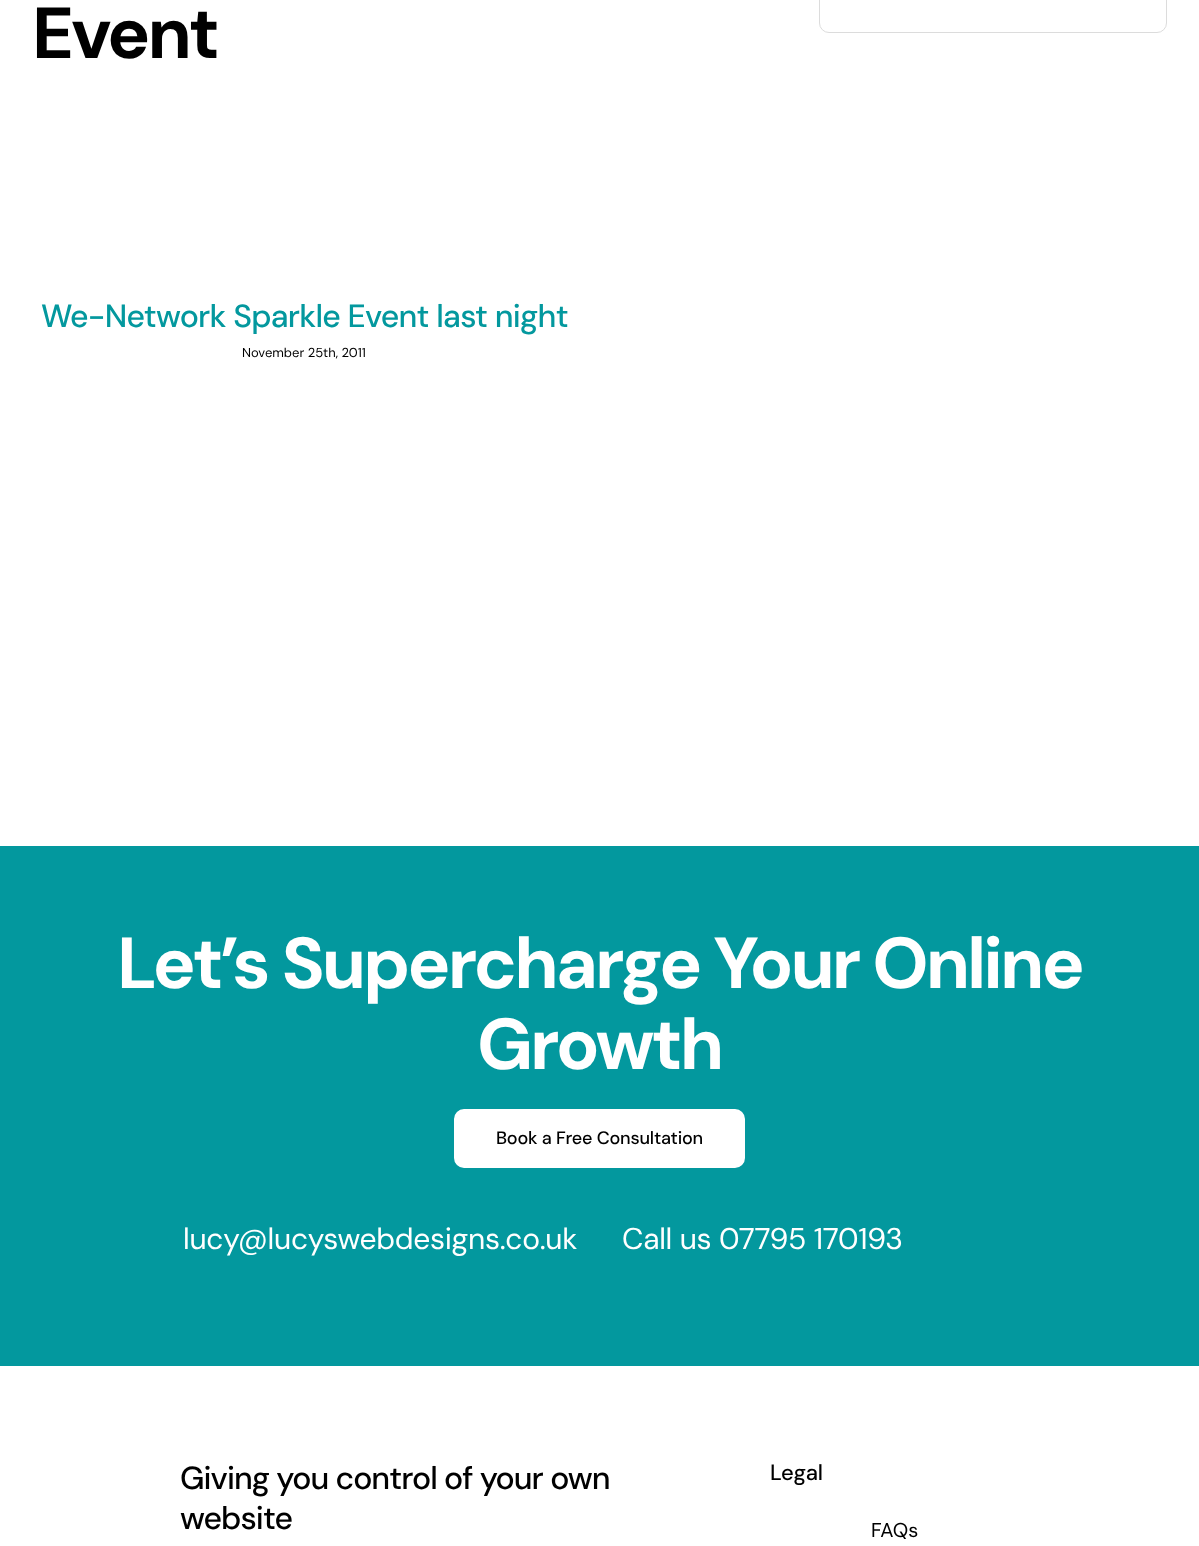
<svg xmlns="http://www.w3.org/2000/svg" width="1199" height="1546">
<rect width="100%" height="100%" fill="#fff"/>
<text x="32" y="58" style="font-family:DM Sans;font-size:72px;font-weight:bold;letter-spacing:-3px;fill:#000">Event</text>
<rect x="819.5" y="-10.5" width="347" height="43" rx="9.5" fill="none" stroke="#dcdcdc"/>
<text x="41" y="327" style="font-family:DM Sans;font-size:32px;font-weight:500;letter-spacing:-0.75px;fill:#03989e">We-Network Sparkle Event last night</text>
<text x="242" y="357" style="font-family:DM Sans;font-size:13px;fill:#000">November 25th, 2011</text>
<rect y="846" width="1199" height="520" fill="#03989e"/>
<text x="117" y="988" style="font-family:DM Sans;font-size:72px;font-weight:bold;letter-spacing:-3px;fill:#fff">Let’s Supercharge Your Online</text>
<text x="477" y="1069" style="font-family:DM Sans;font-size:72px;font-weight:bold;letter-spacing:-3px;fill:#fff">Growth</text>
<rect x="455" y="1110" width="289" height="57" rx="9" fill="#fff" stroke="#fff" stroke-width="2"/>
<text x="496" y="1144" style="font-family:DM Sans;font-size:18px;font-weight:500;letter-spacing:-0.2px;fill:#000">Book a Free Consultation</text>
<text x="183" y="1249" style="font-family:DM Sans;font-size:30px;letter-spacing:-0.3px;fill:#fff">lucy@lucyswebdesigns.co.uk</text>
<text x="622" y="1249" style="font-family:DM Sans;font-size:30px;letter-spacing:-0.3px;fill:#fff">Call us 07795 170193</text>
<text x="180" y="1489" style="font-family:DM Sans;font-size:32px;font-weight:500;letter-spacing:-0.95px;fill:#000">Giving you control of your own</text>
<text x="180" y="1529" style="font-family:DM Sans;font-size:32px;font-weight:500;letter-spacing:-0.95px;fill:#000">website</text>
<text x="770" y="1480" style="font-family:DM Sans;font-size:22px;font-weight:500;letter-spacing:-0.25px;fill:#000">Legal</text>
<text x="871" y="1537" style="font-family:DM Sans;font-size:20px;fill:#000">FAQs</text>
</svg>
